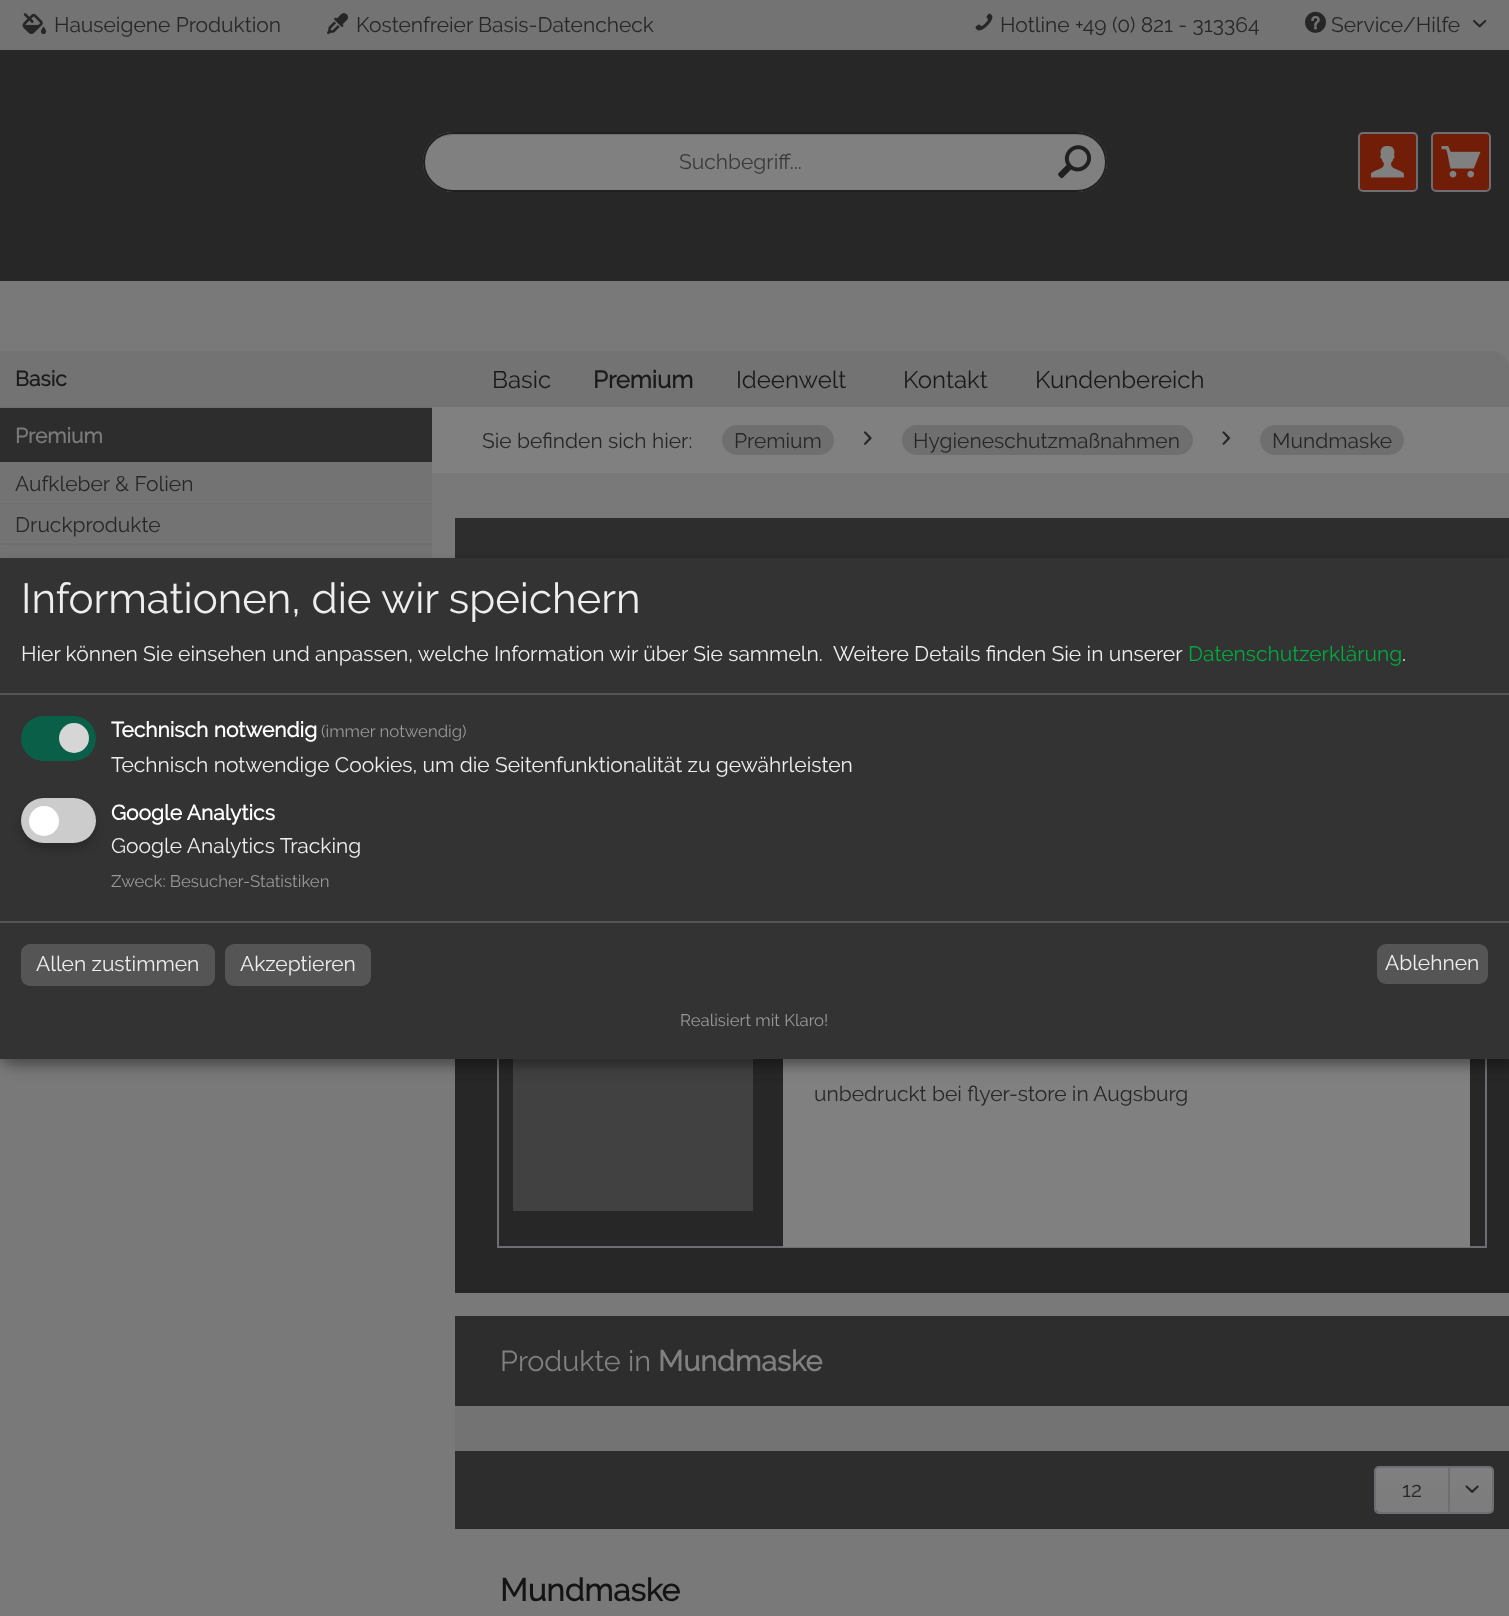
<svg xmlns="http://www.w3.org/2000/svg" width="1509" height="1616">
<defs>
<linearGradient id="g1" gradientUnits="userSpaceOnUse" x1="1434" y1="1467" x2="1434" y2="1512"><stop offset="0" stop-color="#808080"/><stop offset="1" stop-color="#7c7c7d"/></linearGradient>
</defs>
<rect width="100%" height="100%" fill="#797979"/>
<rect y="50" width="1509" height="231" fill="#272727"/>
<rect width="1509" height="50" fill="#737373"/>
<image x="22" y="13" width="25" height="22" href="media/1.png"/>
<text x="54" y="32" style="font-family:Raleway;font-size:21px;fill:#272727">Hauseigene Produktion</text>
<image x="327" y="13" width="21" height="22" href="media/2.png"/>
<text x="356" y="32" style="font-family:Raleway;font-size:21px;fill:#272727">Kostenfreier Basis-Datencheck</text>
<image x="975" y="13" width="18" height="18" href="media/3.png"/>
<text x="1000" y="32" style="font-family:Raleway;font-size:21px;fill:#272727">Hotline +49 (0) 821 - 313364</text>
<image x="1305" y="11" width="21" height="22" href="media/4.png"/>
<text x="1331" y="32" style="font-family:Raleway;font-size:21px;fill:#272727">Service/Hilfe</text>
<image x="1473" y="20" width="14" height="8" href="media/5.png"/>
<rect x="423" y="132" width="684" height="60" rx="30" fill="#808080"/>
<path d="M453 135h624c16 0 29 13 29 28v-1c0-15-13-28-28-28h-624c-10 0-19 5-24 12c5-7 14-11 23-11z" fill="#6d6d73"/>
<rect x="424" y="133" width="682" height="58" rx="29" fill="none" stroke="#202020" stroke-width="2"/>
<text x="679" y="169" style="font-family:Raleway;font-size:21px;fill:#3a3a3a">Suchbegriff...</text>
<image x="1058" y="145" width="34" height="34" href="media/6.png"/>
<rect x="1359" y="133" width="58" height="58" rx="4" fill="#711d08" stroke="#6d6d73" stroke-width="2"/>
<image x="1371" y="146" width="33" height="32" href="media/7.png"/>
<rect x="1432" y="133" width="58" height="58" rx="4" fill="#711d08" stroke="#6d6d73" stroke-width="2"/>
<image x="1441" y="146" width="40" height="32" href="media/8.png"/>
<rect y="351" width="432" height="56" fill="#737373"/>
<rect y="407" width="432" height="1" fill="#6d6d73"/>
<text x="15" y="386" style="font-family:Raleway;font-size:21px;font-weight:bold;fill:#1a1a1a">Basic</text>
<rect y="462" width="432" height="41" fill="#737373"/>
<rect y="408" width="432" height="54" fill="#2d2d2d"/>
<text x="15" y="443" style="font-family:Raleway;font-size:21px;font-weight:bold;fill:#797979">Premium</text>
<rect y="503" width="432" height="42" fill="#6f6f6f"/>
<text x="15" y="491" style="font-family:Raleway;font-size:21px;fill:#272727">Aufkleber &amp; Folien</text>
<rect y="504" width="432" height="39" fill="#737373"/>
<text x="15" y="532" style="font-family:Raleway;font-size:21px;fill:#272727">Druckprodukte</text>
<rect y="545" width="432" height="13" fill="#737373"/>
<path d="M432 351h1059c10 0 18 8 18 18v38h-1077z" fill="#737373"/>
<text x="492" y="388" style="font-family:Raleway;font-size:24px;fill:#1a1a1a">Basic</text>
<text x="593" y="388" style="font-family:Raleway;font-size:24px;font-weight:bold;fill:#1a1a1a">Premium</text>
<text x="736" y="388" style="font-family:Raleway;font-size:24px;fill:#1a1a1a">Ideenwelt</text>
<text x="903" y="388" style="font-family:Raleway;font-size:24px;fill:#1a1a1a">Kontakt</text>
<text x="1035" y="388" style="font-family:Raleway;font-size:24px;fill:#1a1a1a">Kundenbereich</text>
<rect x="432" y="407" width="1077" height="66" fill="#808080"/>
<text x="482" y="448" style="font-family:Raleway;font-size:21px;fill:#272727">Sie befinden sich hier:</text>
<rect x="722" y="425" width="112" height="30" rx="15" fill="#6f6f6f"/>
<text x="734" y="448" style="font-family:Raleway;font-size:21px;fill:#272727">Premium</text>
<image x="864" y="431" width="8" height="14" href="media/9.png"/>
<rect x="902" y="425" width="291" height="30" rx="15" fill="#6f6f6f"/>
<text x="913" y="448" style="font-family:Raleway;font-size:21px;fill:#272727">Hygieneschutzmaßnahmen</text>
<image x="1222" y="431" width="9" height="14" href="media/10.png"/>
<rect x="1260" y="425" width="144" height="30" rx="15" fill="#6f6f6f"/>
<text x="1272" y="448" style="font-family:Raleway;font-size:21px;fill:#272727">Mundmaske</text>
<rect x="455" y="518" width="1054" height="40" fill="#2d2d2d"/>
<rect x="455" y="1059" width="1054" height="234" fill="#272727"/>
<rect x="498" y="991" width="988" height="256" fill="none" stroke="#6d6d73" stroke-width="2"/>
<rect x="513" y="1059" width="240" height="152" fill="#414141"/>
<rect x="783" y="1059" width="687" height="188" fill="#808080"/>
<text x="814" y="1101" style="font-family:Raleway;font-size:21px;fill:#272727">unbedruckt bei flyer-store in Augsburg</text>
<rect x="455" y="1316" width="1054" height="90" fill="#2d2d2d"/>
<text x="500" y="1371" style="font-family:Raleway;font-size:28.75px;fill:#808080">Produkte in</text>
<text x="658" y="1371" style="font-family:Raleway;font-size:28.75px;font-weight:bold;fill:#808080">Mundmaske</text>
<rect x="455" y="1406" width="1054" height="45" fill="#737373"/>
<rect x="455" y="1451" width="1054" height="78" fill="#2d2d2d"/>
<rect x="1376" y="1467" width="117" height="45" rx="3" fill="url(#g1)"/>
<rect x="1375" y="1467" width="118" height="46" rx="4" fill="none" stroke="#6d6d73" stroke-width="2"/>
<text x="1402" y="1497" style="font-family:Raleway;font-size:21px;fill:#272727">12</text>
<rect x="1448" y="1467" width="2" height="47" fill="#6d6d73"/>
<image x="1465" y="1485" width="14" height="8" href="media/11.png"/>
<text x="500" y="1601" style="font-family:Raleway;font-size:31.5px;font-weight:bold;fill:#141414">Mundmaske</text>
<rect x="8" y="566" width="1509" height="501" fill="#00000030" filter="blur(7.5px)"/>
<rect y="564" width="1509" height="501" fill="#00000033" filter="blur(4.5px)"/>
<rect y="558" width="1509" height="501" fill="#333"/>
<rect y="693" width="1509" height="2" fill="#555"/>
<text x="21" y="613" style="font-family:Raleway;font-size:42px;fill:#eee">Informationen, die wir speichern</text>
<text x="21" y="661" style="font-family:Raleway;font-size:21px;fill:#eee">Hier können Sie einsehen und anpassen, welche Information wir über Sie sammeln.</text>
<text x="833" y="661" style="font-family:Raleway;font-size:21px;fill:#eee">Weitere Details finden Sie in unserer</text>
<text x="1188" y="661" style="font-family:Raleway;font-size:21px;fill:#00aa3e">Datenschutzerklärung</text>
<text x="1402" y="661" style="font-family:Raleway;font-size:21px;fill:#eee">.</text>
<rect x="21" y="716" width="75" height="45" rx="22.5" fill="#0a5f49"/>
<circle cx="74" cy="738" r="15" fill="#d6d6d6"/>
<text x="111" y="737" style="font-family:Raleway;font-size:21px;font-weight:bold;fill:#fff">Technisch notwendig</text>
<text x="321" y="737" style="font-family:Raleway;font-size:16.75px;fill:#999">(immer notwendig)</text>
<text x="111" y="772" style="font-family:Raleway;font-size:21px;fill:#eee">Technisch notwendige Cookies, um die Seitenfunktionalität zu gewährleisten</text>
<rect x="21" y="804" width="75" height="45" rx="22.5" fill="#00000033" filter="blur(4.5px)"/>
<rect x="21" y="798" width="75" height="45" rx="22.5" fill="#ccc"/>
<circle cx="44" cy="821" r="15" fill="#fff"/>
<text x="111" y="820" style="font-family:Raleway;font-size:21px;font-weight:bold;fill:#fff">Google Analytics</text>
<text x="111" y="853" style="font-family:Raleway;font-size:21px;fill:#eee">Google Analytics Tracking</text>
<text x="111" y="887" style="font-family:Raleway;font-size:16.75px;fill:#999">Zweck: Besucher-Statistiken</text>
<rect y="921" width="1509" height="2" fill="#555"/>
<rect x="21" y="944" width="194" height="42" rx="9" fill="#555"/>
<text x="36" y="971" style="font-family:Raleway;font-size:21px;fill:#eee">Allen zustimmen</text>
<rect x="225" y="944" width="146" height="42" rx="9" fill="#555"/>
<text x="240" y="971" style="font-family:Raleway;font-size:21px;fill:#eee">Akzeptieren</text>
<rect x="1377" y="944" width="111" height="40" rx="9" fill="#555"/>
<text x="1385" y="970" style="font-family:Raleway;font-size:21px;fill:#eee">Ablehnen</text>
<text x="680" y="1026" style="font-family:Raleway;font-size:16.75px;fill:#999">Realisiert mit Klaro!</text>
</svg>
